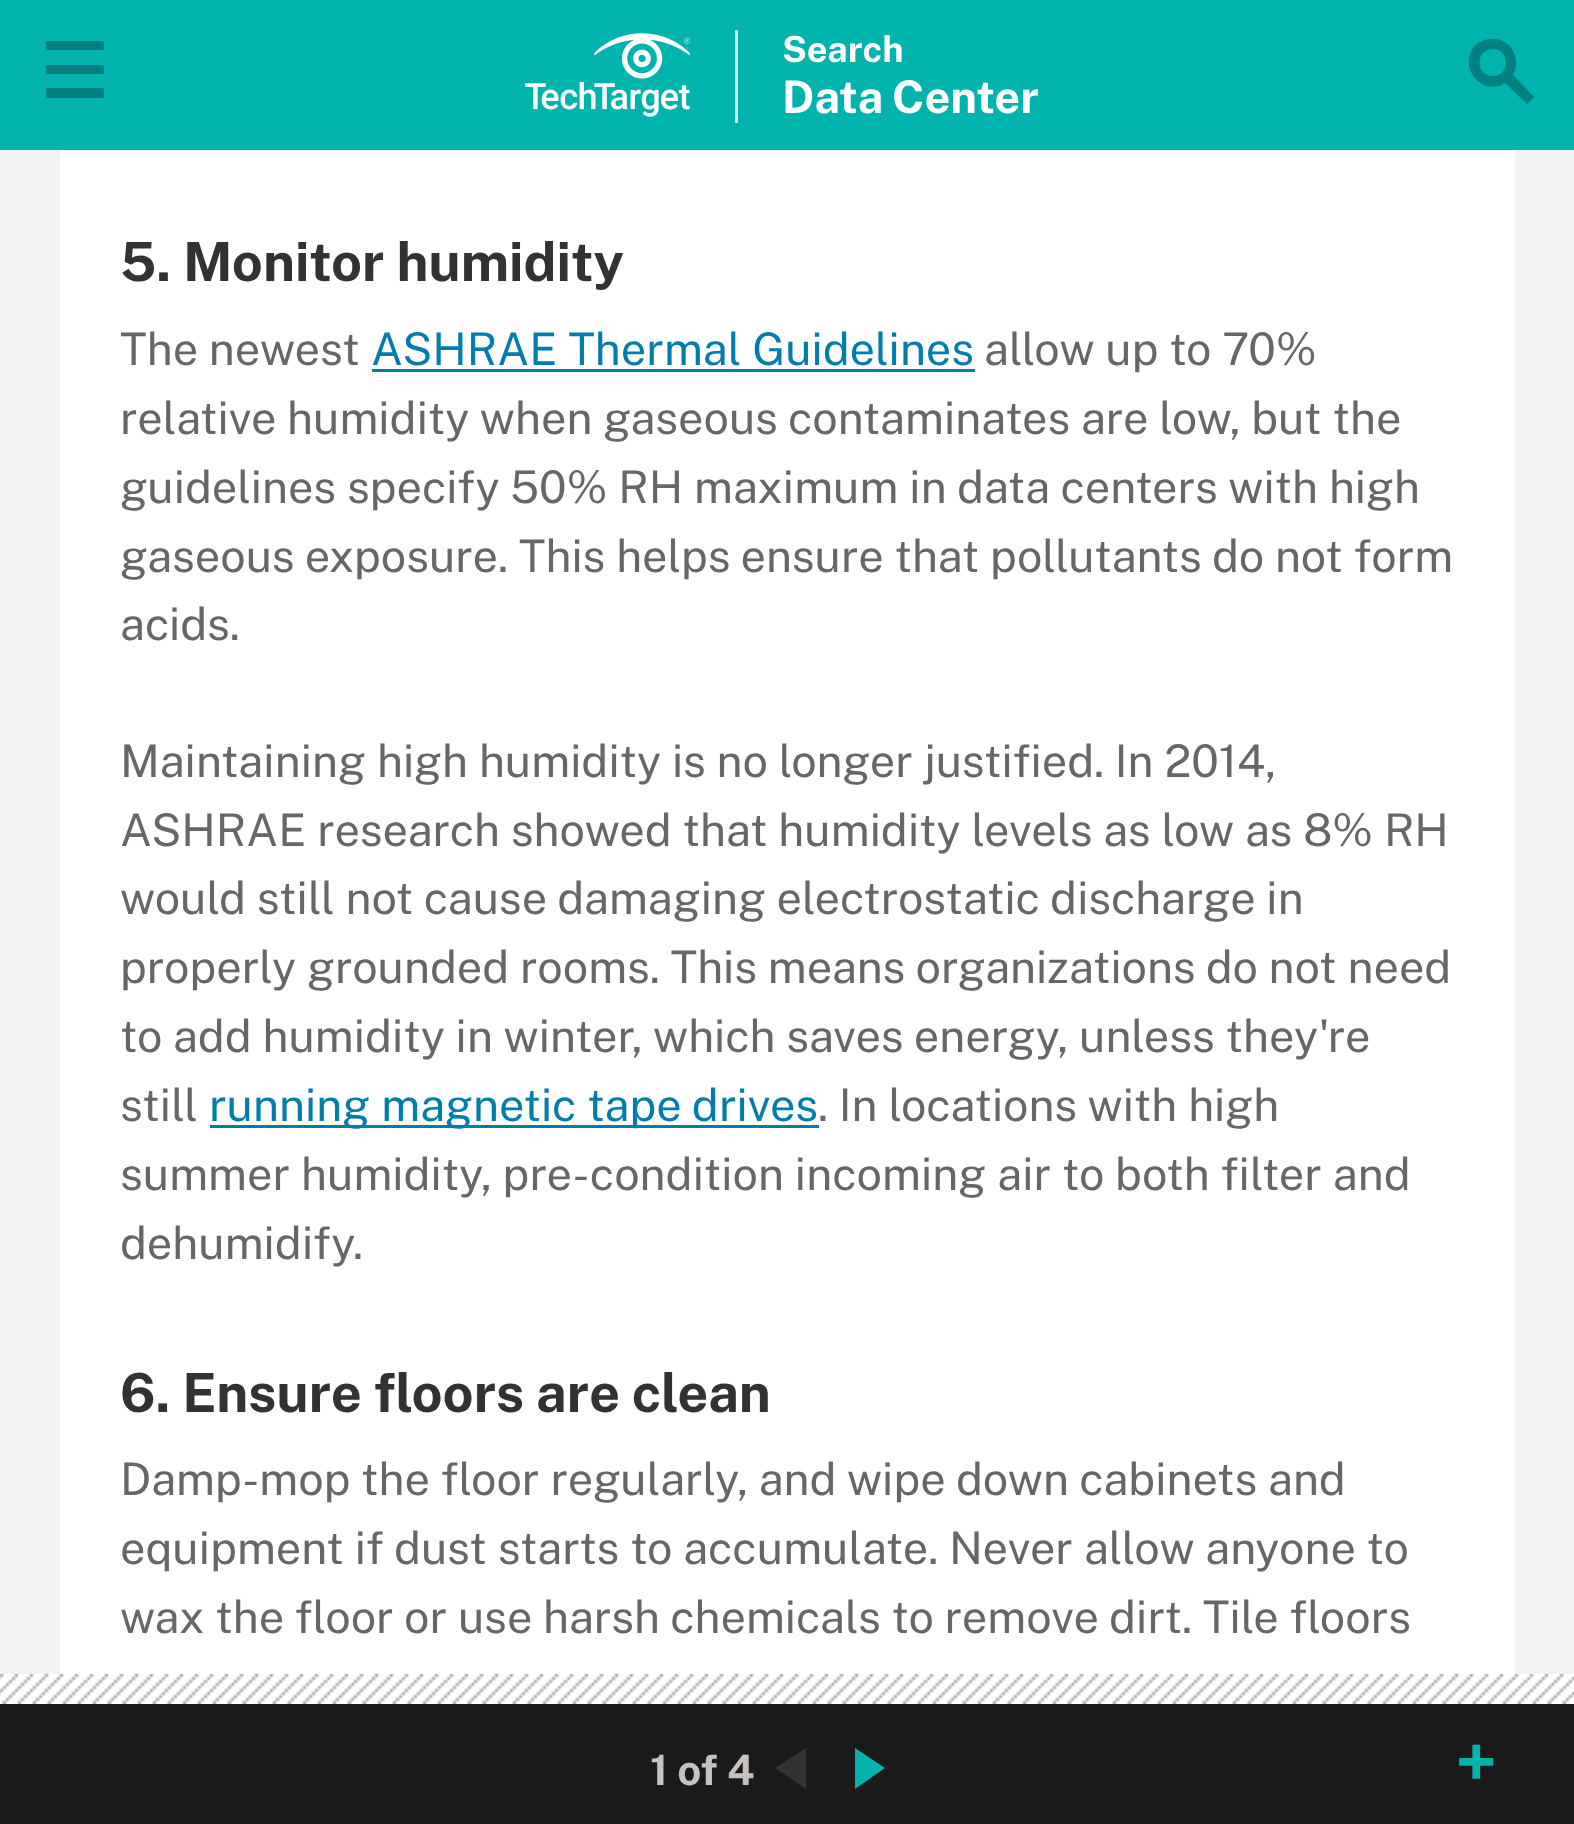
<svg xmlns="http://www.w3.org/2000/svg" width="1574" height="1824">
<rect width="100%" height="100%" fill="#f2f2f2"/>
<rect width="1574" height="150" fill="#00b3ac"/>
<path d="M46 41h58v9h-58zm0 24h58v9h-58zm0 23h58v10h-58z" fill="#008080"/>
<image x="525" y="33" width="165" height="84" href="media/1.png"/>
<rect x="735" y="30" width="3" height="93" fill="#cef0ee"/>
<text x="782" y="62" style="font-family:Public Sans;font-size:36px;font-weight:bold;fill:#fff">Search</text>
<text x="782" y="113" style="font-family:Public Sans;font-size:45px;font-weight:bold;fill:#fff">Data</text>
<text x="892" y="113" style="font-family:Public Sans;font-size:45px;font-weight:bold;fill:#fff">Center</text>
<path d="M1534 97l-21-22c7-12 2-28-10-34c-7-3-14-3-21 0c-5 2-9 6-11 11c-10 21 15 44 34 31l22 21zm-41-21c-18 0-18-27 0-27c17 0 17 27 0 27z" fill="#008080"/>
<rect x="60" y="150" width="1455" height="1524" fill="#fff"/>
<text x="120" y="281" style="font-family:Public Sans;font-size:54px;font-weight:bold;fill:#323232">5. Monitor humidity</text>
<text x="120" y="365" style="font-family:Public Sans;font-size:45px;fill:#666">The newest</text>
<text x="371" y="365" style="font-family:Public Sans;font-size:45px;fill:#007cad">ASHRAE Thermal Guidelines</text>
<rect x="372" y="369" width="603" height="3" fill="#007cad"/>
<text x="984" y="365" style="font-family:Public Sans;font-size:45px;fill:#666">allow up to 70%</text>
<text x="120" y="434" style="font-family:Public Sans;font-size:45px;fill:#666">relative humidity when gaseous contaminates are low, but the</text>
<text x="120" y="503" style="font-family:Public Sans;font-size:45px;fill:#666">guidelines specify 50% RH maximum in data centers with high</text>
<text x="120" y="572" style="font-family:Public Sans;font-size:45px;fill:#666">gaseous exposure. This helps ensure that pollutants do not form</text>
<text x="120" y="640" style="font-family:Public Sans;font-size:45px;fill:#666">acids.</text>
<text x="120" y="777" style="font-family:Public Sans;font-size:45px;fill:#666">Maintaining high humidity is no longer justified. In 2014,</text>
<text x="120" y="846" style="font-family:Public Sans;font-size:45px;fill:#666">ASHRAE research showed that humidity levels as low as 8% RH</text>
<text x="120" y="914" style="font-family:Public Sans;font-size:45px;fill:#666">would still not cause damaging electrostatic discharge in</text>
<text x="120" y="983" style="font-family:Public Sans;font-size:45px;fill:#666">properly grounded rooms. This means organizations do not need</text>
<text x="120" y="1052" style="font-family:Public Sans;font-size:45px;fill:#666">to add humidity in winter, which saves energy, unless they're</text>
<text x="120" y="1121" style="font-family:Public Sans;font-size:45px;fill:#666">still</text>
<rect x="210" y="1125" width="609" height="3" fill="#007cad"/>
<text x="209" y="1121" style="font-family:Public Sans;font-size:45px;fill:#007cad">running magnetic tape drives</text>
<text x="818" y="1121" style="font-family:Public Sans;font-size:45px;fill:#666">. In locations with high</text>
<text x="120" y="1190" style="font-family:Public Sans;font-size:45px;fill:#666">summer humidity, pre-condition incoming air to both filter and</text>
<text x="120" y="1259" style="font-family:Public Sans;font-size:45px;fill:#666">dehumidify.</text>
<text x="120" y="1412" style="font-family:Public Sans;font-size:54px;font-weight:bold;fill:#323232">6. Ensure floors are clean</text>
<text x="120" y="1495" style="font-family:Public Sans;font-size:45px;fill:#666">Damp-mop the floor regularly, and wipe down cabinets and</text>
<text x="120" y="1564" style="font-family:Public Sans;font-size:45px;fill:#666">equipment if dust starts to accumulate. Never allow anyone to</text>
<text x="120" y="1633" style="font-family:Public Sans;font-size:45px;fill:#666">wax the floor or use harsh chemicals to remove dirt. Tile floors</text>
<rect y="1704" width="1574" height="120" fill="#1a1a1a"/>
<image x="0" y="1674" width="1574" height="30" href="media/2.png"/>
<text x="650" y="1785" style="font-family:Public Sans;font-size:42px;font-weight:bold;fill:#c6c2bf">1 of 4</text>
<path d="M806 1748l-31 20l31 21z" fill="#323232"/>
<path d="M855 1748l30 20l-30 21z" fill="#00b3ac"/>
<text x="1455" y="1788" style="font-family:Public Sans;font-size:72px;font-weight:bold;fill:#00b3ac">+</text>
</svg>
